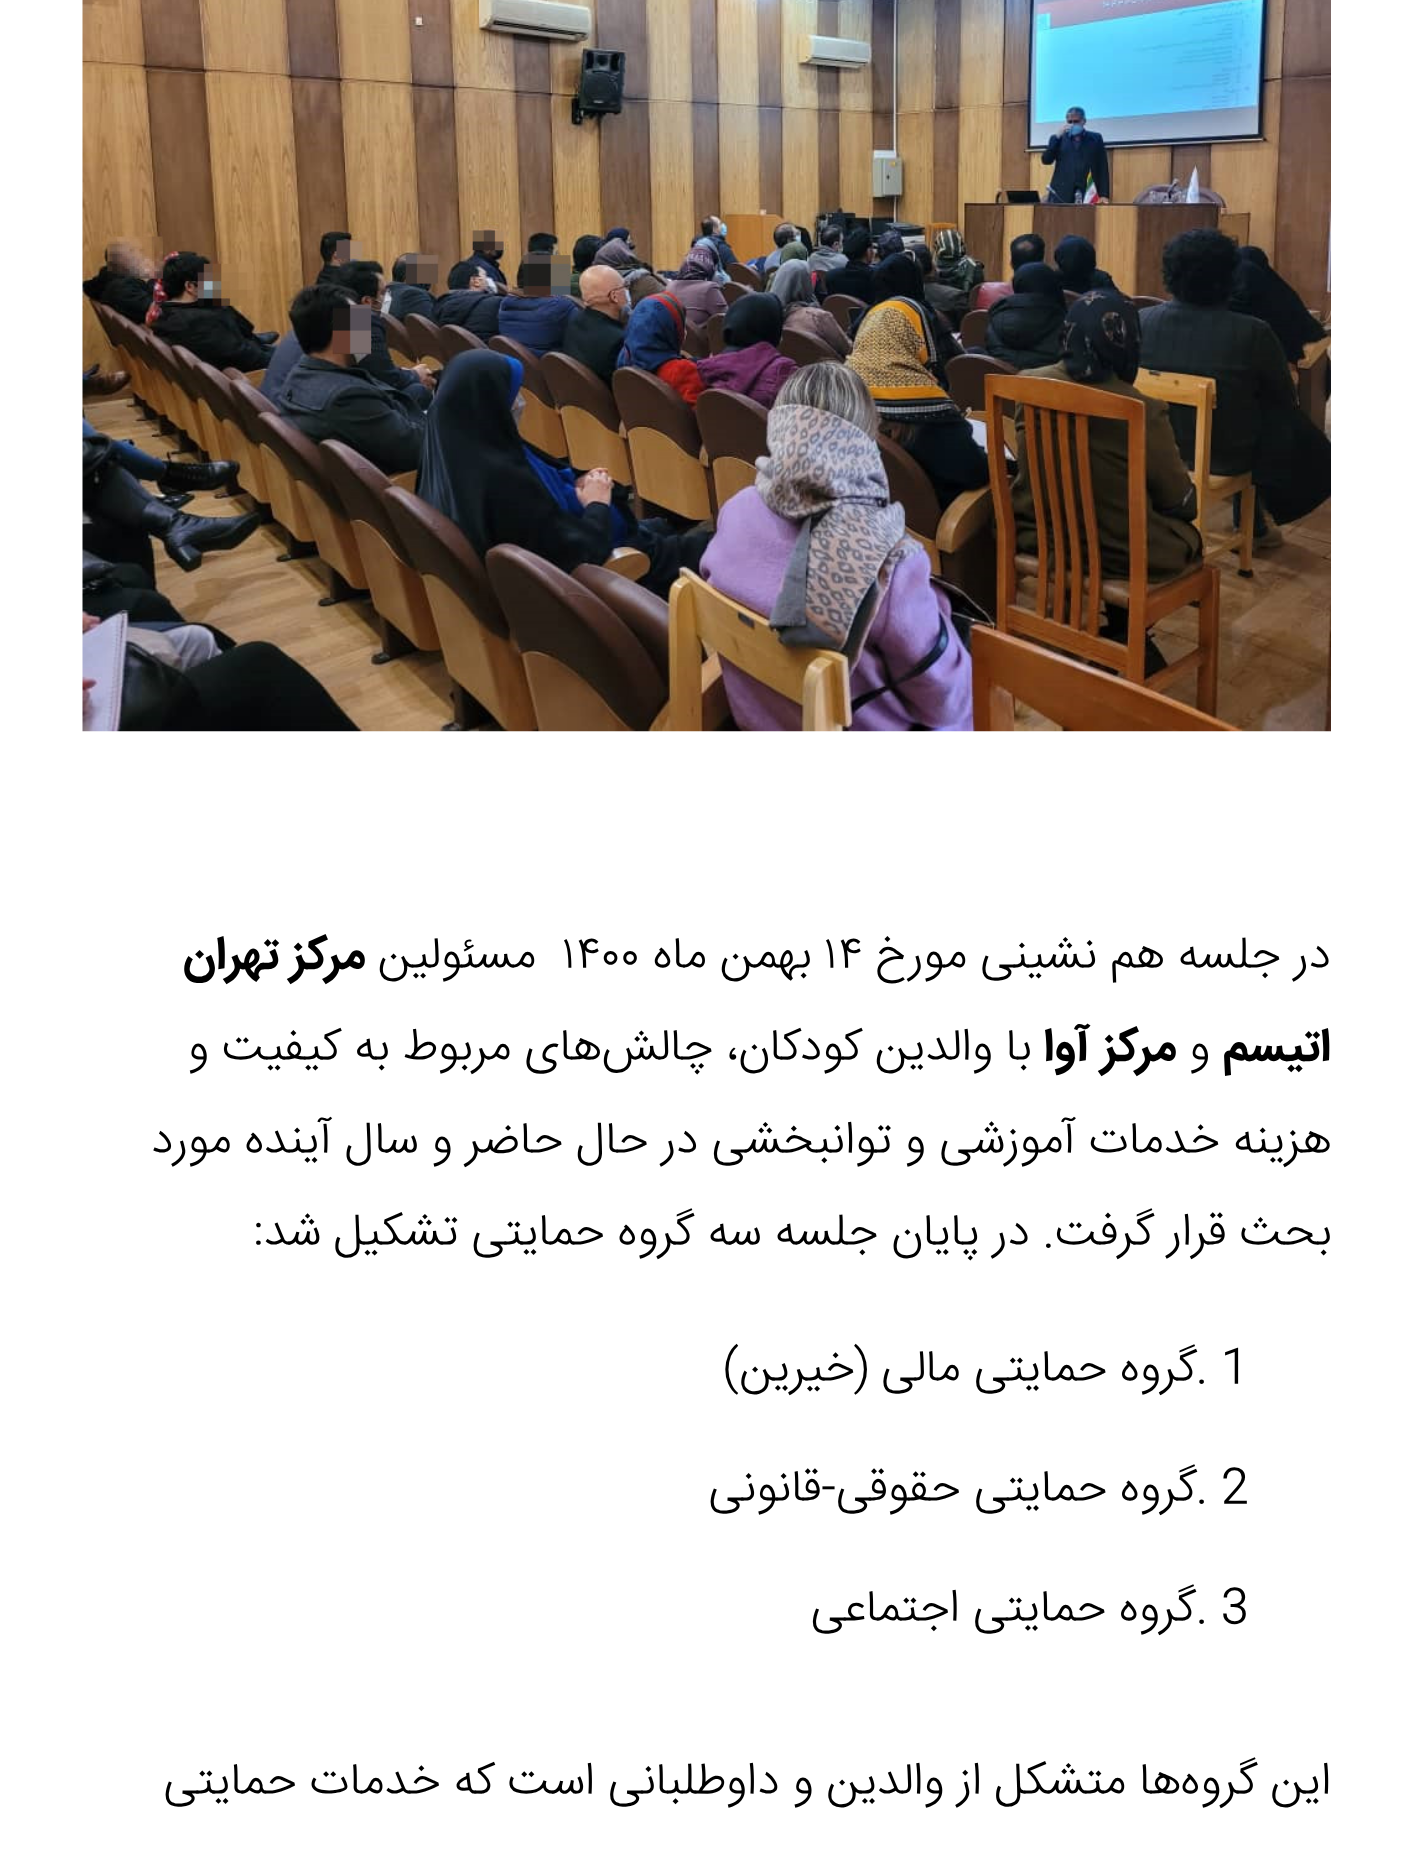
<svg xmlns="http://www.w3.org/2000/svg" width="1412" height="1866">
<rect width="100%" height="100%" fill="#fff"/>
<image x="82" y="0" width="1249" height="732" href="media/1.png"/>
<text x="1331" y="968" style="font-family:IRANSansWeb;font-size:46.2px;font-weight:300;direction:rtl;fill:#000">در جلسه هم نشینی مورخ</text>
<text x="824" y="968" style="font-family:IRANSansWeb;font-size:46.2px;font-weight:300;fill:#000">۱۴</text>
<text x="811" y="968" style="font-family:IRANSansWeb;font-size:46.2px;font-weight:300;direction:rtl;fill:#000">بهمن ماه</text>
<text x="562" y="968" style="font-family:IRANSansWeb;font-size:46.2px;font-weight:300;fill:#000">۱۴۰۰</text>
<text x="536" y="968" style="font-family:IRANSansWeb;font-size:46.2px;font-weight:300;direction:rtl;fill:#000">مسئولین</text>
<text x="365" y="968" style="font-family:IRANSansWeb;font-size:46.2px;font-weight:bold;direction:rtl;fill:#000">مرکز تهران</text>
<text x="1331" y="1060" style="font-family:IRANSansWeb;font-size:46.2px;font-weight:bold;direction:rtl;fill:#000">اتیسم</text>
<text x="1210" y="1060" style="font-family:IRANSansWeb;font-size:46.2px;font-weight:300;direction:rtl;fill:#000">و</text>
<text x="1176" y="1060" style="font-family:IRANSansWeb;font-size:46.2px;font-weight:bold;direction:rtl;fill:#000">مرکز آوا</text>
<text x="1031" y="1060" style="font-family:IRANSansWeb;font-size:46.2px;font-weight:300;direction:rtl;fill:#000">با والدین کودکان، چالش‌های مربوط به کیفیت و</text>
<text x="1331" y="1153" word-spacing="-0.1" style="font-family:IRANSansWeb;font-size:46.2px;font-weight:300;direction:rtl;fill:#000">هزینه خدمات آموزشی و توانبخشی در حال حاضر و سال آینده مورد</text>
<text x="1331" y="1245" word-spacing="-0.1" style="font-family:IRANSansWeb;font-size:46.2px;font-weight:300;direction:rtl;fill:#000">بحث قرار گرفت. در پایان جلسه سه گروه حمایتی تشکیل شد:</text>
<text x="1196" y="1381" style="font-family:IRANSansWeb;font-size:46.2px;font-weight:300;fill:#000">. 1</text>
<text x="1197" y="1381" style="font-family:IRANSansWeb;font-size:46.2px;font-weight:300;direction:rtl;fill:#000">گروه حمایتی مالی (خیرین)</text>
<text x="1196" y="1501" style="font-family:IRANSansWeb;font-size:46.2px;font-weight:300;fill:#000">. 2</text>
<text x="1197" y="1501" style="font-family:IRANSansWeb;font-size:46.2px;font-weight:300;direction:rtl;fill:#000">گروه حمایتی حقوقی-قانونی</text>
<text x="1196" y="1621" style="font-family:IRANSansWeb;font-size:46.2px;font-weight:300;fill:#000">. 3</text>
<text x="1196" y="1621" style="font-family:IRANSansWeb;font-size:46.2px;font-weight:300;direction:rtl;fill:#000">گروه حمایتی اجتماعی</text>
<text x="1331" y="1794" word-spacing="-0.1" style="font-family:IRANSansWeb;font-size:46.2px;font-weight:300;direction:rtl;fill:#000">این گروه‌ها متشکل از والدین و داوطلبانی است که خدمات حمایتی</text>
</svg>
